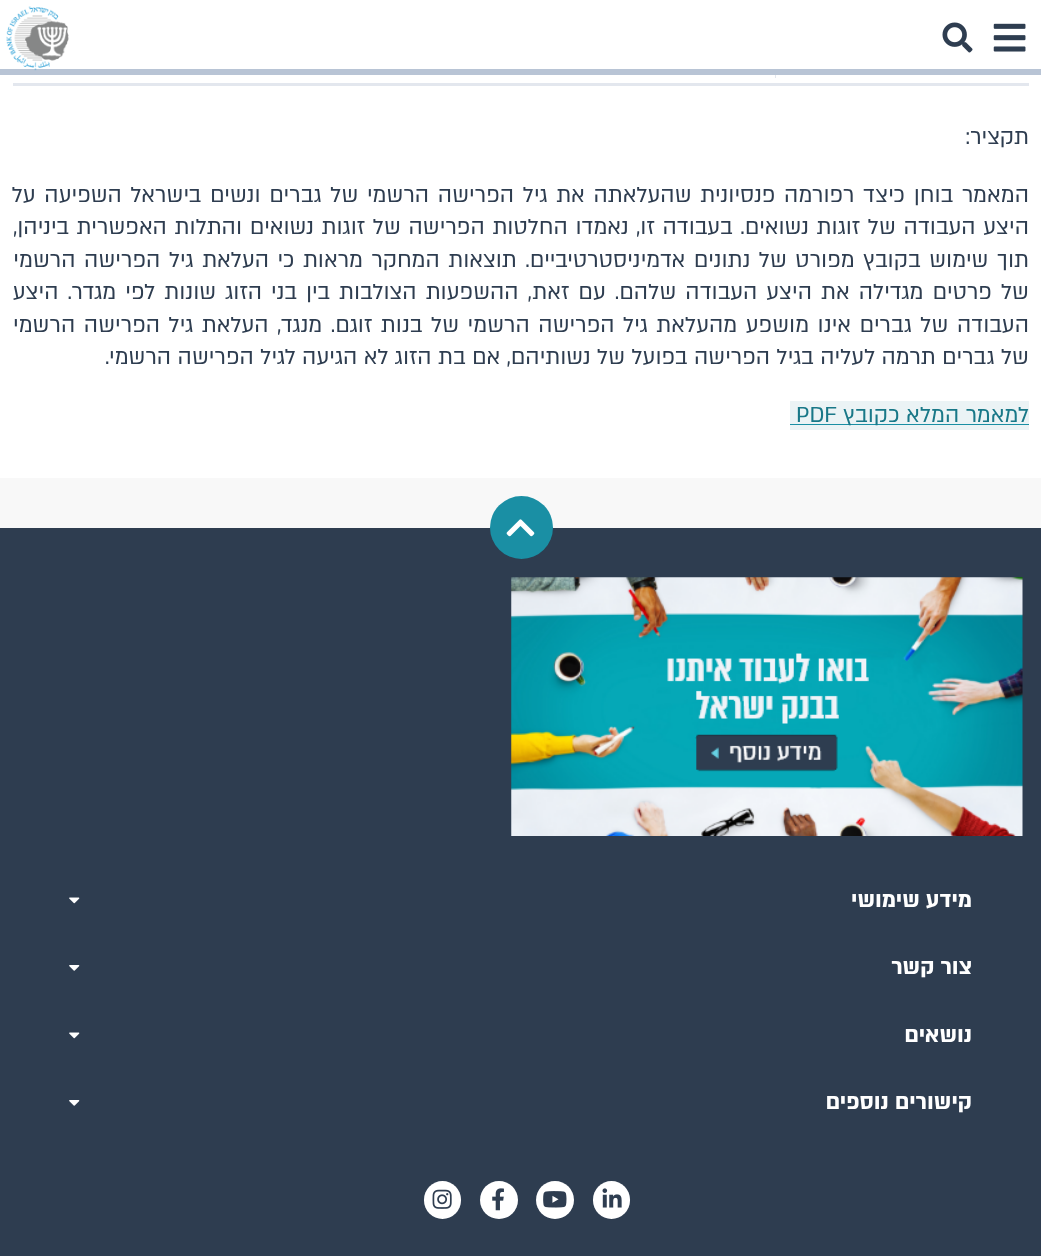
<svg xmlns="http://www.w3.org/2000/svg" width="1041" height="1256">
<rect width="100%" height="100%" fill="#f8f8f8"/>
<rect width="1041" height="69" fill="#fff"/>
<rect y="69" width="1041" height="6" fill="#b8c4d5"/>
<image x="993" y="23" width="33" height="29" href="media/1.png"/>
<image x="942" y="22" width="31" height="31" href="media/2.png"/>
<image x="6" y="6" width="63" height="65" href="media/3.png"/>
<rect y="75" width="1041" height="403" fill="#fff"/>
<rect x="13" y="83" width="1016" height="3" fill="#e3e7ee"/>
<rect x="775" y="75" width="1" height="3" fill="#e3e7ee"/>
<text x="1029" y="144" style="font-family:'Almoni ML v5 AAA';font-size:25px;direction:rtl;fill:#2e3d50">תקציר:</text>
<text x="1029" y="202" word-spacing="2.25" style="font-family:'Almoni ML v5 AAA';font-size:25px;direction:rtl;fill:#2e3d50">המאמר בוחן כיצד רפורמה פנסיונית שהעלאתה את גיל הפרישה הרשמי של גברים ונשים בישראל השפיעה על</text>
<text x="1029" y="234" word-spacing="1.25" style="font-family:'Almoni ML v5 AAA';font-size:25px;direction:rtl;fill:#2e3d50">היצע העבודה של זוגות נשואים. בעבודה זו, נאמדו החלטות הפרישה של זוגות נשואים והתלות האפשרית ביניהן,</text>
<text x="1029" y="267" word-spacing="2.1" style="font-family:'Almoni ML v5 AAA';font-size:25px;direction:rtl;fill:#2e3d50">תוך שימוש בקובץ מפורט של נתונים אדמיניסטרטיביים. תוצאות המחקר מראות כי העלאת גיל הפרישה הרשמי</text>
<text x="1029" y="299" word-spacing="2.6" style="font-family:'Almoni ML v5 AAA';font-size:25px;direction:rtl;fill:#2e3d50">של פרטים מגדילה את היצע העבודה שלהם. עם זאת, ההשפעות הצולבות בין בני הזוג שונות לפי מגדר. היצע</text>
<text x="1029" y="332" word-spacing="2.1" style="font-family:'Almoni ML v5 AAA';font-size:25px;direction:rtl;fill:#2e3d50">העבודה של גברים אינו מושפע מהעלאת גיל הפרישה הרשמי של בנות זוגם. מנגד, העלאת גיל הפרישה הרשמי</text>
<text x="1029" y="364" style="font-family:'Almoni ML v5 AAA';font-size:25px;direction:rtl;fill:#2e3d50">של גברים תרמה לעליה בגיל הפרישה בפועל של נשותיהם, אם בת הזוג לא הגיעה לגיל הפרישה הרשמי.</text>
<rect x="790" y="401" width="239" height="29" fill="#ebf3f5"/>
<rect x="790" y="424" width="239" height="1" fill="#1a8fa4"/>
<text x="1029" y="422" style="font-family:'Almoni ML v5 AAA';font-size:25px;direction:rtl;fill:#197888">למאמר המלא כקובץ</text>
<text x="796" y="422" style="font-family:'Almoni ML v5 AAA';font-size:25px;fill:#197888">PDF</text>
<rect y="528" width="1041" height="728" fill="#2e3d50"/>
<circle cx="521.5" cy="527.5" r="31.5" fill="#1a8fa4"/>
<image x="506" y="519" width="29" height="18" href="media/4.png"/>
<image x="511" y="577" width="512" height="259" href="media/5.png"/>
<text x="972" y="907" style="font-family:'Almoni ML v5 AAA';font-size:25px;font-weight:bold;direction:rtl;fill:#fff">מידע שימושי</text>
<image x="69" y="897" width="11" height="7" href="media/6.png"/>
<text x="972" y="974" style="font-family:'Almoni ML v5 AAA';font-size:25px;font-weight:bold;direction:rtl;fill:#fff">צור קשר</text>
<image x="69" y="965" width="11" height="6" href="media/7.png"/>
<text x="972" y="1042" style="font-family:'Almoni ML v5 AAA';font-size:25px;font-weight:bold;direction:rtl;fill:#fff">נושאים</text>
<image x="69" y="1032" width="11" height="7" href="media/6.png"/>
<text x="972" y="1109" style="font-family:'Almoni ML v5 AAA';font-size:25px;font-weight:bold;direction:rtl;fill:#fff">קישורים נוספים</text>
<image x="69" y="1100" width="11" height="6" href="media/7.png"/>
<rect x="593" y="1181" width="37" height="38" rx="18.5" fill="#fff"/>
<image x="602" y="1188" width="20" height="20" href="media/8.png"/>
<circle cx="555" cy="1200" r="19" fill="#fff"/>
<image x="543" y="1191" width="24" height="17" href="media/9.png"/>
<circle cx="499" cy="1200" r="19" fill="#fff"/>
<image x="492" y="1188" width="12" height="23" href="media/10.png"/>
<rect x="424" y="1181" width="37" height="38" rx="18.5" fill="#fff"/>
<image x="432" y="1189" width="20" height="20" href="media/11.png"/>
</svg>
